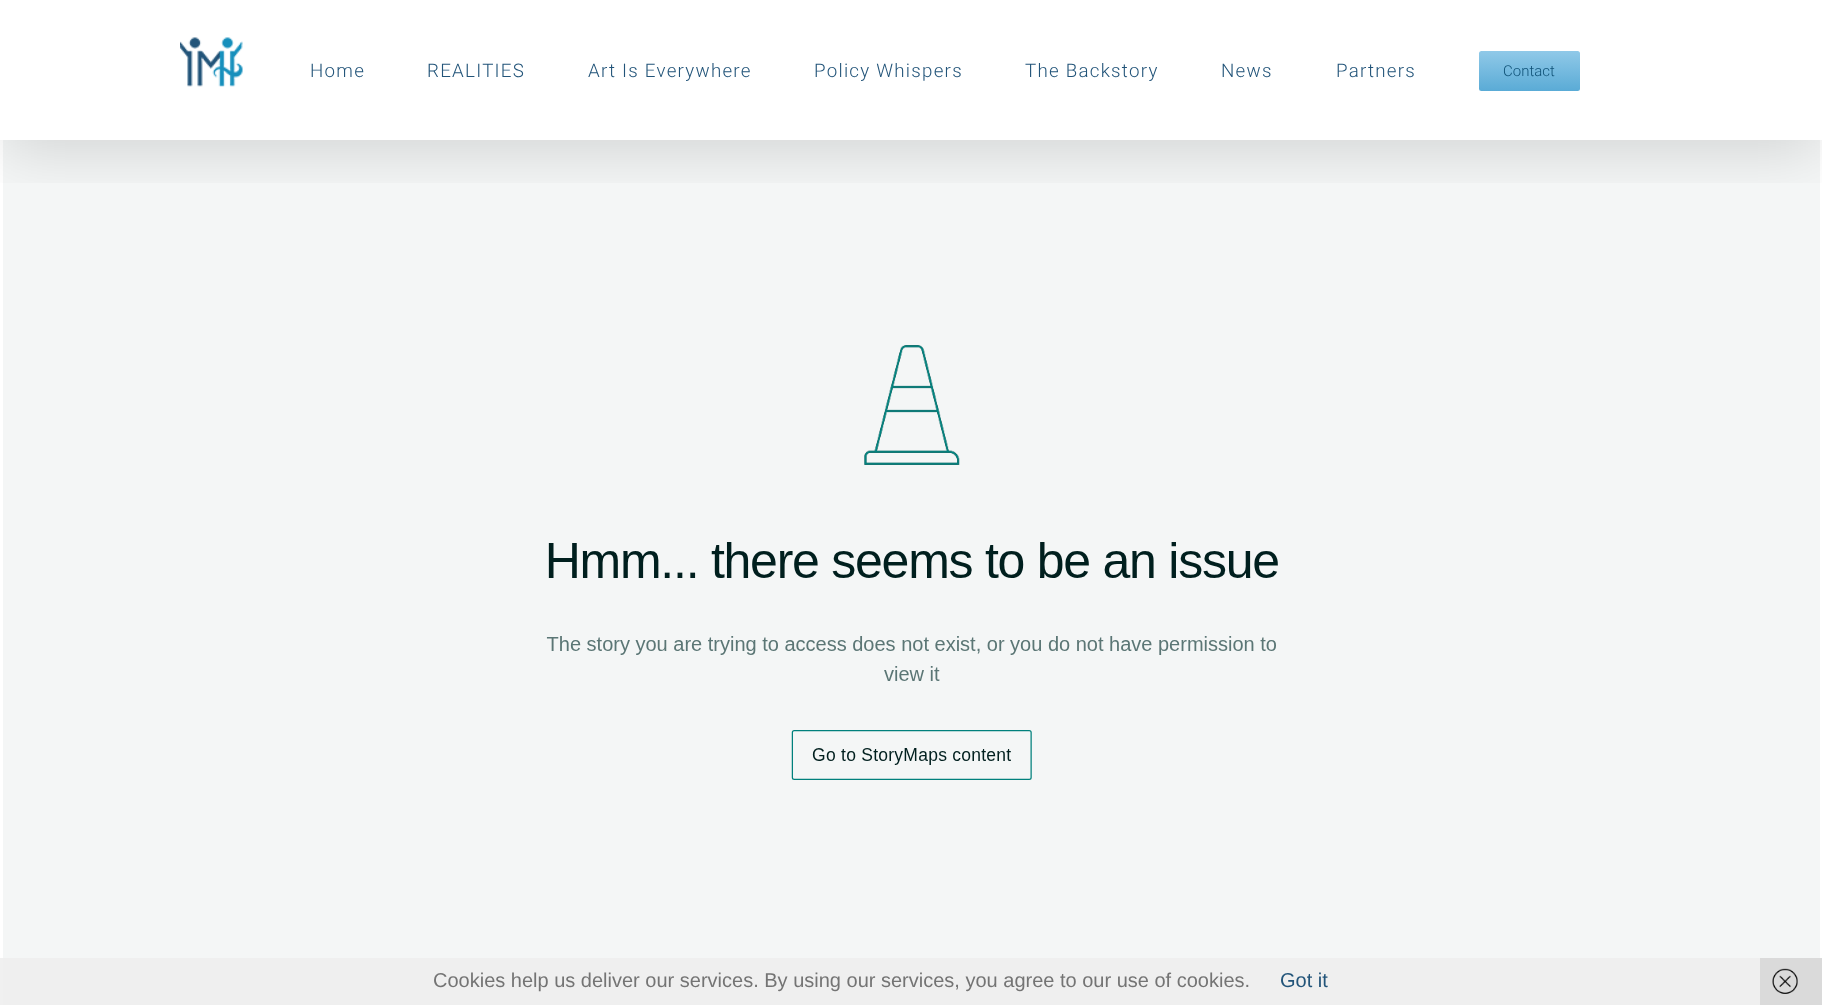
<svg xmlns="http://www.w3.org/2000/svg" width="1822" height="1005">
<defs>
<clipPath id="clip1"><rect x="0" y="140" width="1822" height="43"/></clipPath>
<linearGradient id="g1" gradientUnits="userSpaceOnUse" x1="1529" y1="51" x2="1529" y2="91"><stop offset="0" stop-color="#90c9e8"/><stop offset="1" stop-color="#5aabd6"/></linearGradient>
</defs>
<rect width="100%" height="100%" fill="#fff"/>
<image x="3" y="140" width="1817" height="865" href="media/2.png"/>
<g clip-path="url(#clip1)">
<rect x="3" y="15" width="1817" height="135" fill="#00000024" filter="blur(31px)"/>
</g>
<image x="180" y="37" width="63" height="50" href="media/1.png"/>
<text x="310" y="77" style="font-family:Roboto;font-size:18.75px;font-weight:300;letter-spacing:1.25px;fill:#225479">Home</text>
<text x="427" y="77" style="font-family:Roboto;font-size:18.75px;font-weight:300;letter-spacing:1.25px;fill:#225479">REALITIES</text>
<text x="588" y="77" style="font-family:Roboto;font-size:18.75px;font-weight:300;letter-spacing:1.25px;fill:#225479">Art Is Everywhere</text>
<text x="814" y="77" style="font-family:Roboto;font-size:18.75px;font-weight:300;letter-spacing:1.25px;fill:#225479">Policy Whispers</text>
<text x="1025" y="77" style="font-family:Roboto;font-size:18.75px;font-weight:300;letter-spacing:1.25px;fill:#225479">The Backstory</text>
<text x="1221" y="77" style="font-family:Roboto;font-size:18.75px;font-weight:300;letter-spacing:1.25px;fill:#225479">News</text>
<text x="1336" y="77" style="font-family:Roboto;font-size:18.75px;font-weight:300;letter-spacing:1.25px;fill:#225479">Partners</text>
<rect x="1479" y="51" width="101" height="40" rx="2.5" fill="url(#g1)"/>
<text x="1503" y="76" style="font-family:Roboto;font-size:15px;font-weight:300;fill:#105378">Contact</text>
<rect y="958" width="1760" height="47" fill="#eeeeeee6"/>
<text x="433" y="987" style="font-family:Liberation Sans;font-size:20px;fill:#747474">Cookies help us deliver our services. By using our services, you agree to our use of cookies.</text>
<text x="1280" y="987" style="font-family:Liberation Sans;font-size:20px;fill:#225479">Got it</text>
<rect x="1760" y="958" width="62" height="47" fill="#dadada"/>
<image x="1772" y="968" width="26" height="26" href="media/3.png"/>
</svg>
